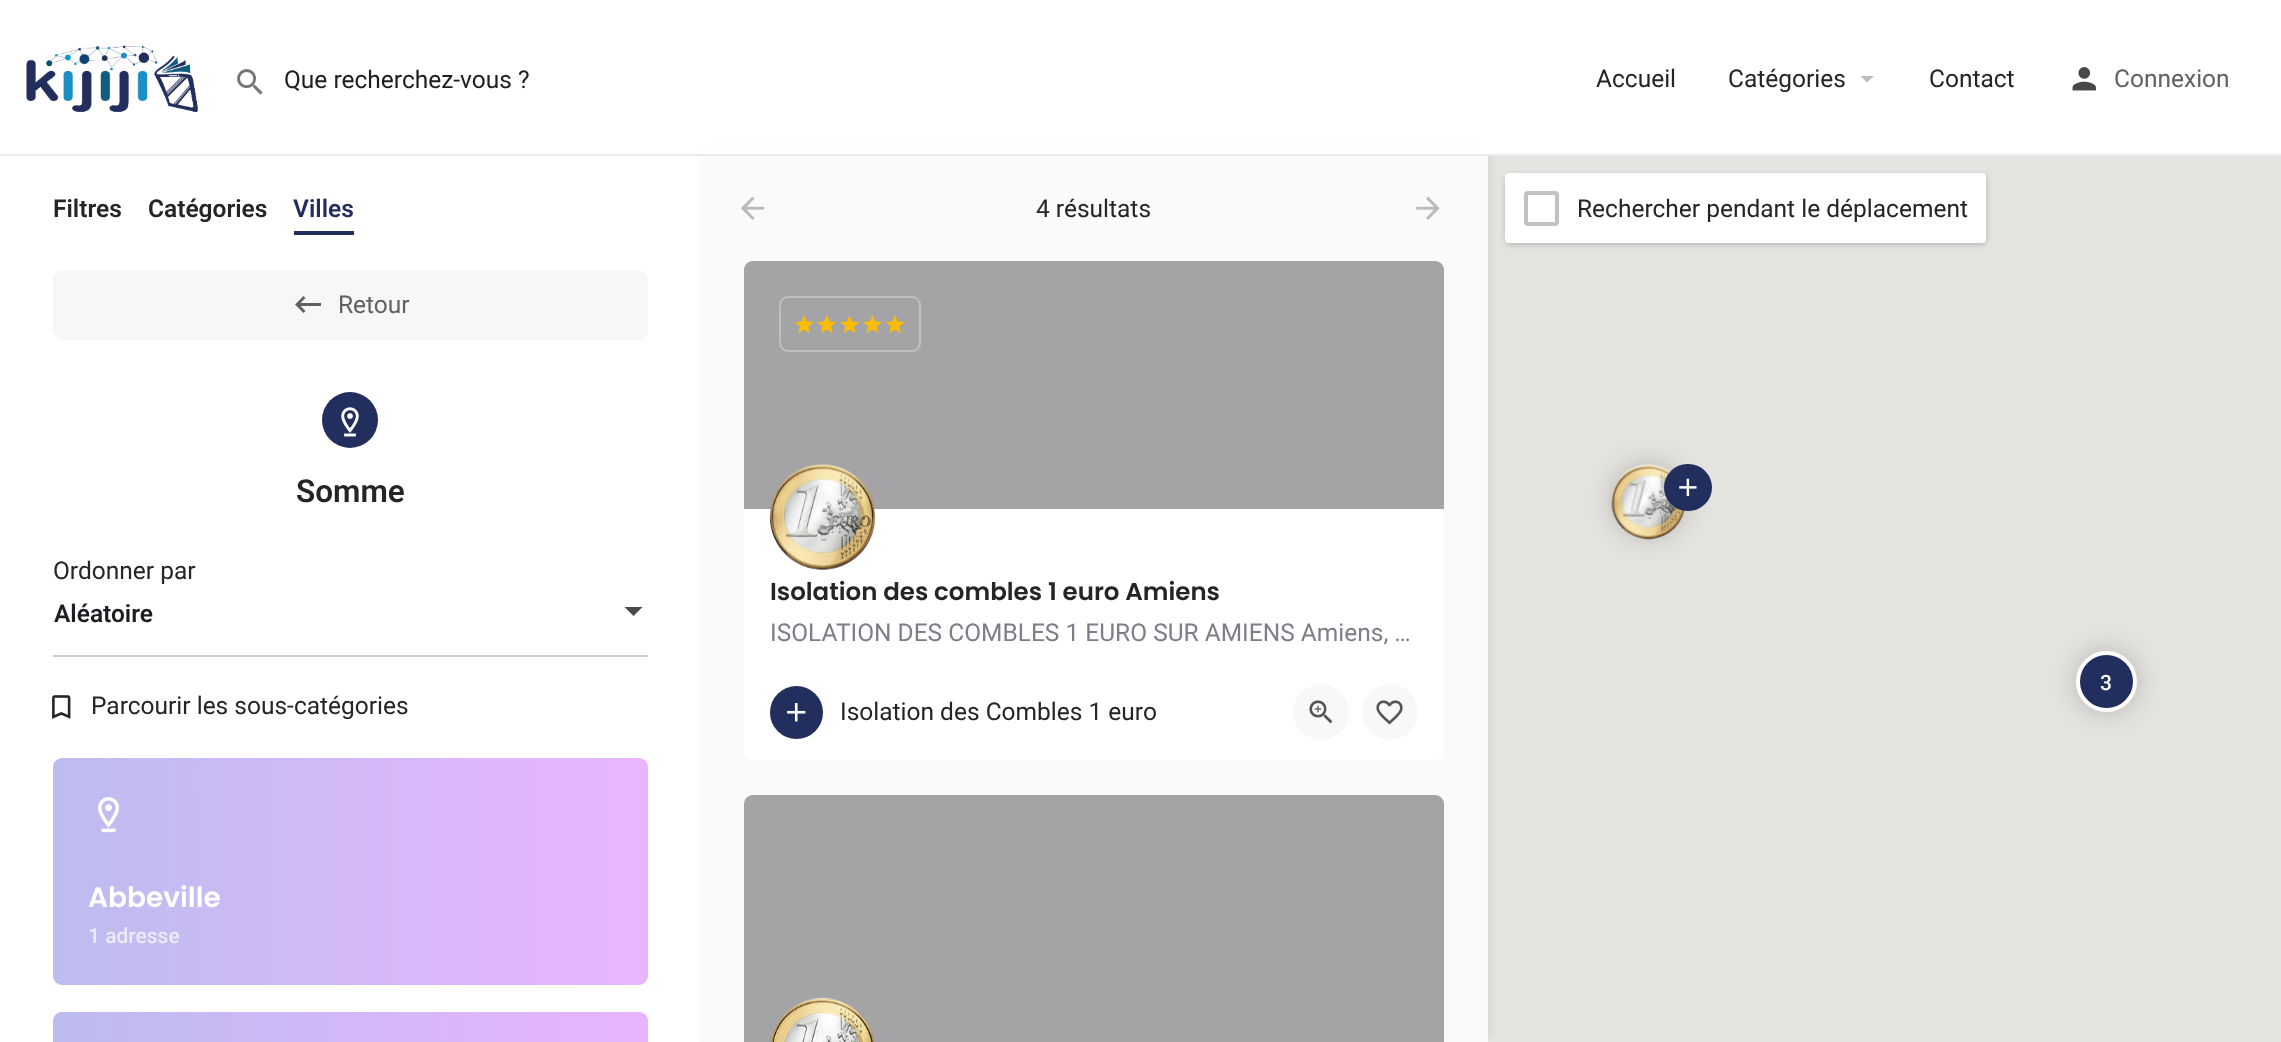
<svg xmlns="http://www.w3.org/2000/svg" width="2281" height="1042">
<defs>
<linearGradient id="g1" gradientUnits="userSpaceOnUse" x1="648" y1="871" x2="53" y2="872"><stop offset="0" stop-color="#e9b5fe"/><stop offset="1" stop-color="#bdbcef"/></linearGradient>
<linearGradient id="g2" gradientUnits="userSpaceOnUse" x1="648" y1="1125" x2="53" y2="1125"><stop offset="0" stop-color="#e8b4fe"/><stop offset="1" stop-color="#bcbbef"/></linearGradient>
<clipPath id="clip1"><path d="M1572 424h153v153h-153zm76.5 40c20 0 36.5 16.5 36.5 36.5c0 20-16.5 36.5-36.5 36.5c-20 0-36.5-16.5-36.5-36.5c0-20 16.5-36.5 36.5-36.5z" clip-rule="evenodd"/></clipPath>
</defs>
<rect width="100%" height="100%" fill="#fff"/>
<image x="26" y="45" width="172" height="67" href="media/1.png"/>
<image x="237" y="69" width="26" height="26" href="media/2.png"/>
<text x="284" y="88" style="font-family:Roboto;font-size:24.5px;fill:#1d1d23">Que recherchez-vous ?</text>
<text x="1596" y="87" style="font-family:Roboto;font-size:24.5px;fill:#242429">Accueil</text>
<text x="1728" y="87" style="font-family:Roboto;font-size:24.5px;fill:#242429">Catégories</text>
<path d="M1860.5 76h13.5l-7 6.5z" fill="#bdbdbf"/>
<text x="1929" y="87" style="font-family:Roboto;font-size:24.5px;fill:#242429">Contact</text>
<image x="2072" y="67" width="24" height="24" href="media/3.png"/>
<text x="2114" y="87" style="font-family:Roboto;font-size:24.5px;fill:#616165">Connexion</text>
<rect x="1488" y="156" width="793" height="886" fill="#e5e3df"/>
<rect x="702" y="149" width="787" height="887" fill="#00000012" filter="blur(3.5px)"/>
<rect x="699" y="145" width="793" height="9" fill="#fff"/>
<rect y="154" width="2281" height="2" fill="#ebebeb"/>
<text x="53" y="217" style="font-family:Roboto;font-size:24.5px;font-weight:600;fill:#242429">Filtres</text>
<text x="148" y="217" style="font-family:Roboto;font-size:24.5px;font-weight:600;fill:#242429">Catégories</text>
<text x="293" y="217" style="font-family:Roboto;font-size:24.5px;font-weight:600;fill:#222e5d">Villes</text>
<rect x="294" y="231" width="60" height="4" fill="#222e5d"/>
<rect x="53" y="270" width="595" height="70" rx="9" fill="#f6f7f6"/>
<path d="M321 303v3h-20.5l5 5l-2 2l-8.5-8.5l8.5-8.5l2 2l-5 5z" fill="#616165"/>
<text x="338" y="313" style="font-family:Roboto;font-size:24.5px;fill:#616165">Retour</text>
<circle cx="350" cy="420" r="28" fill="#222e5d"/>
<image x="341" y="407" width="18" height="30" href="media/4.png"/>
<text x="296" y="502" style="font-family:Roboto;font-size:31.5px;font-weight:600;fill:#242429">Somme</text>
<text x="53" y="579" style="font-family:Roboto;font-size:24.5px;fill:#242429">Ordonner par</text>
<rect x="53" y="655" width="595" height="2" fill="#ccc"/>
<text x="54" y="622" style="font-family:Roboto;font-size:24.5px;font-weight:600;fill:#1d1d23">Aléatoire</text>
<path d="M624.5 607h18l-9 9z" fill="#484848"/>
<image x="52" y="695" width="19" height="24" href="media/5.png"/>
<text x="91" y="714" style="font-family:Roboto;font-size:24.5px;fill:#242429">Parcourir les sous-catégories</text>
<rect x="53" y="758" width="595" height="227" rx="9" fill="url(#g1)"/>
<image x="98" y="797" width="21" height="36" href="media/6.png"/>
<text x="88" y="907" style="font-family:Poppins;font-size:28px;font-weight:600;fill:#fff">Abbeville</text>
<text x="88" y="943" style="font-family:Roboto;font-size:21px;font-weight:500;fill:#edebfb">1 adresse</text>
<path d="M62 1012h577c5 0 9 4 9 9v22h-595v-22c0-5 4-9 9-9z" fill="url(#g2)"/>
<rect x="700" y="156" width="788" height="886" fill="#fafafa"/>
<image x="741" y="196" width="24" height="24" href="media/7.png"/>
<text x="1036" y="217" style="font-family:Roboto;font-size:24.5px;fill:#242429">4 résultats</text>
<image x="1416" y="196" width="24" height="24" href="media/8.png"/>
<path d="M753 261h682c5 0 9 4 9 9v393h-700v-393c0-5 4-9 9-9z" fill="#24242966"/>
<rect x="780" y="297" width="140" height="54" rx="8" fill="none" stroke="#c0c0c1" stroke-width="2"/>
<image x="794" y="315" width="20" height="18" href="media/9.png"/>
<image x="817" y="315" width="20" height="18" href="media/10.png"/>
<image x="840" y="315" width="19" height="18" href="media/11.png"/>
<image x="863" y="315" width="19" height="18" href="media/12.png"/>
<image x="885" y="315" width="20" height="18" href="media/9.png"/>
<rect x="744" y="509" width="700" height="154" fill="#fff"/>
<circle cx="822.5" cy="518.5" r="52.5" fill="#fff"/>
<image x="770" y="464" width="105" height="106" href="media/13.png"/>
<text x="770" y="600" style="font-family:Poppins;font-size:24.5px;font-weight:600;fill:#242429">Isolation des combles 1 euro Amiens</text>
<text x="770" y="641" style="font-family:Roboto;font-size:24.5px;fill:#7e7e89">ISOLATION DES COMBLES 1 EURO SUR AMIENS Amiens, …</text>
<path d="M744 663h700v88c0 5-4 9-9 9h-682c-5 0-9-4-9-9z" fill="#fff"/>
<circle cx="796.5" cy="712.5" r="26.5" fill="#222e5d"/>
<image x="787" y="703" width="19" height="19" href="media/14.png"/>
<text x="840" y="720" style="font-family:Roboto;font-size:24.5px;fill:#242429">Isolation des Combles 1 euro</text>
<circle cx="1321" cy="712" r="28" fill="#f8f8f8"/>
<image x="1309" y="700" width="24" height="24" href="media/15.png"/>
<circle cx="1390" cy="712" r="28" fill="#f8f8f8"/>
<image x="1376" y="700" width="27" height="25" href="media/16.png"/>
<path d="M753 795h682c5 0 9 4 9 9v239h-700v-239c0-5 4-9 9-9z" fill="#24242966"/>
<image x="770" y="998" width="105" height="44" href="media/17.png"/>
<rect x="1507" y="177" width="478" height="66" rx="2" fill="#0000004d" filter="blur(3.5px)"/>
<rect x="1505" y="173" width="481" height="70" rx="4" fill="#fff"/>
<rect x="1526" y="193" width="31" height="31" rx="2" fill="none" stroke="#c2c2c2" stroke-width="4"/>
<text x="1577" y="217" style="font-family:Roboto;font-size:24.5px;fill:#242429">Rechercher pendant le déplacement</text>
<g clip-path="url(#clip1)">
<rect x="1612" y="464" width="73" height="73" rx="36.5" fill="#00000033" filter="blur(13px)"/>
</g>
<image x="1611" y="465" width="74" height="75" href="media/18.png"/>
<rect x="1664" y="464" width="48" height="47" rx="23.5" fill="#222e5d"/>
<image x="1679" y="478" width="18" height="19" href="media/19.png"/>
<rect x="2076" y="651" width="61" height="61" rx="30.5" fill="#00000033" filter="blur(13px)"/>
<circle cx="2106.5" cy="681.5" r="28.5" fill="#222e5d" stroke="#fff" stroke-width="4"/>
<text x="2100" y="690" style="font-family:Roboto;font-size:21px;font-weight:500;fill:#fff">3</text>
</svg>
